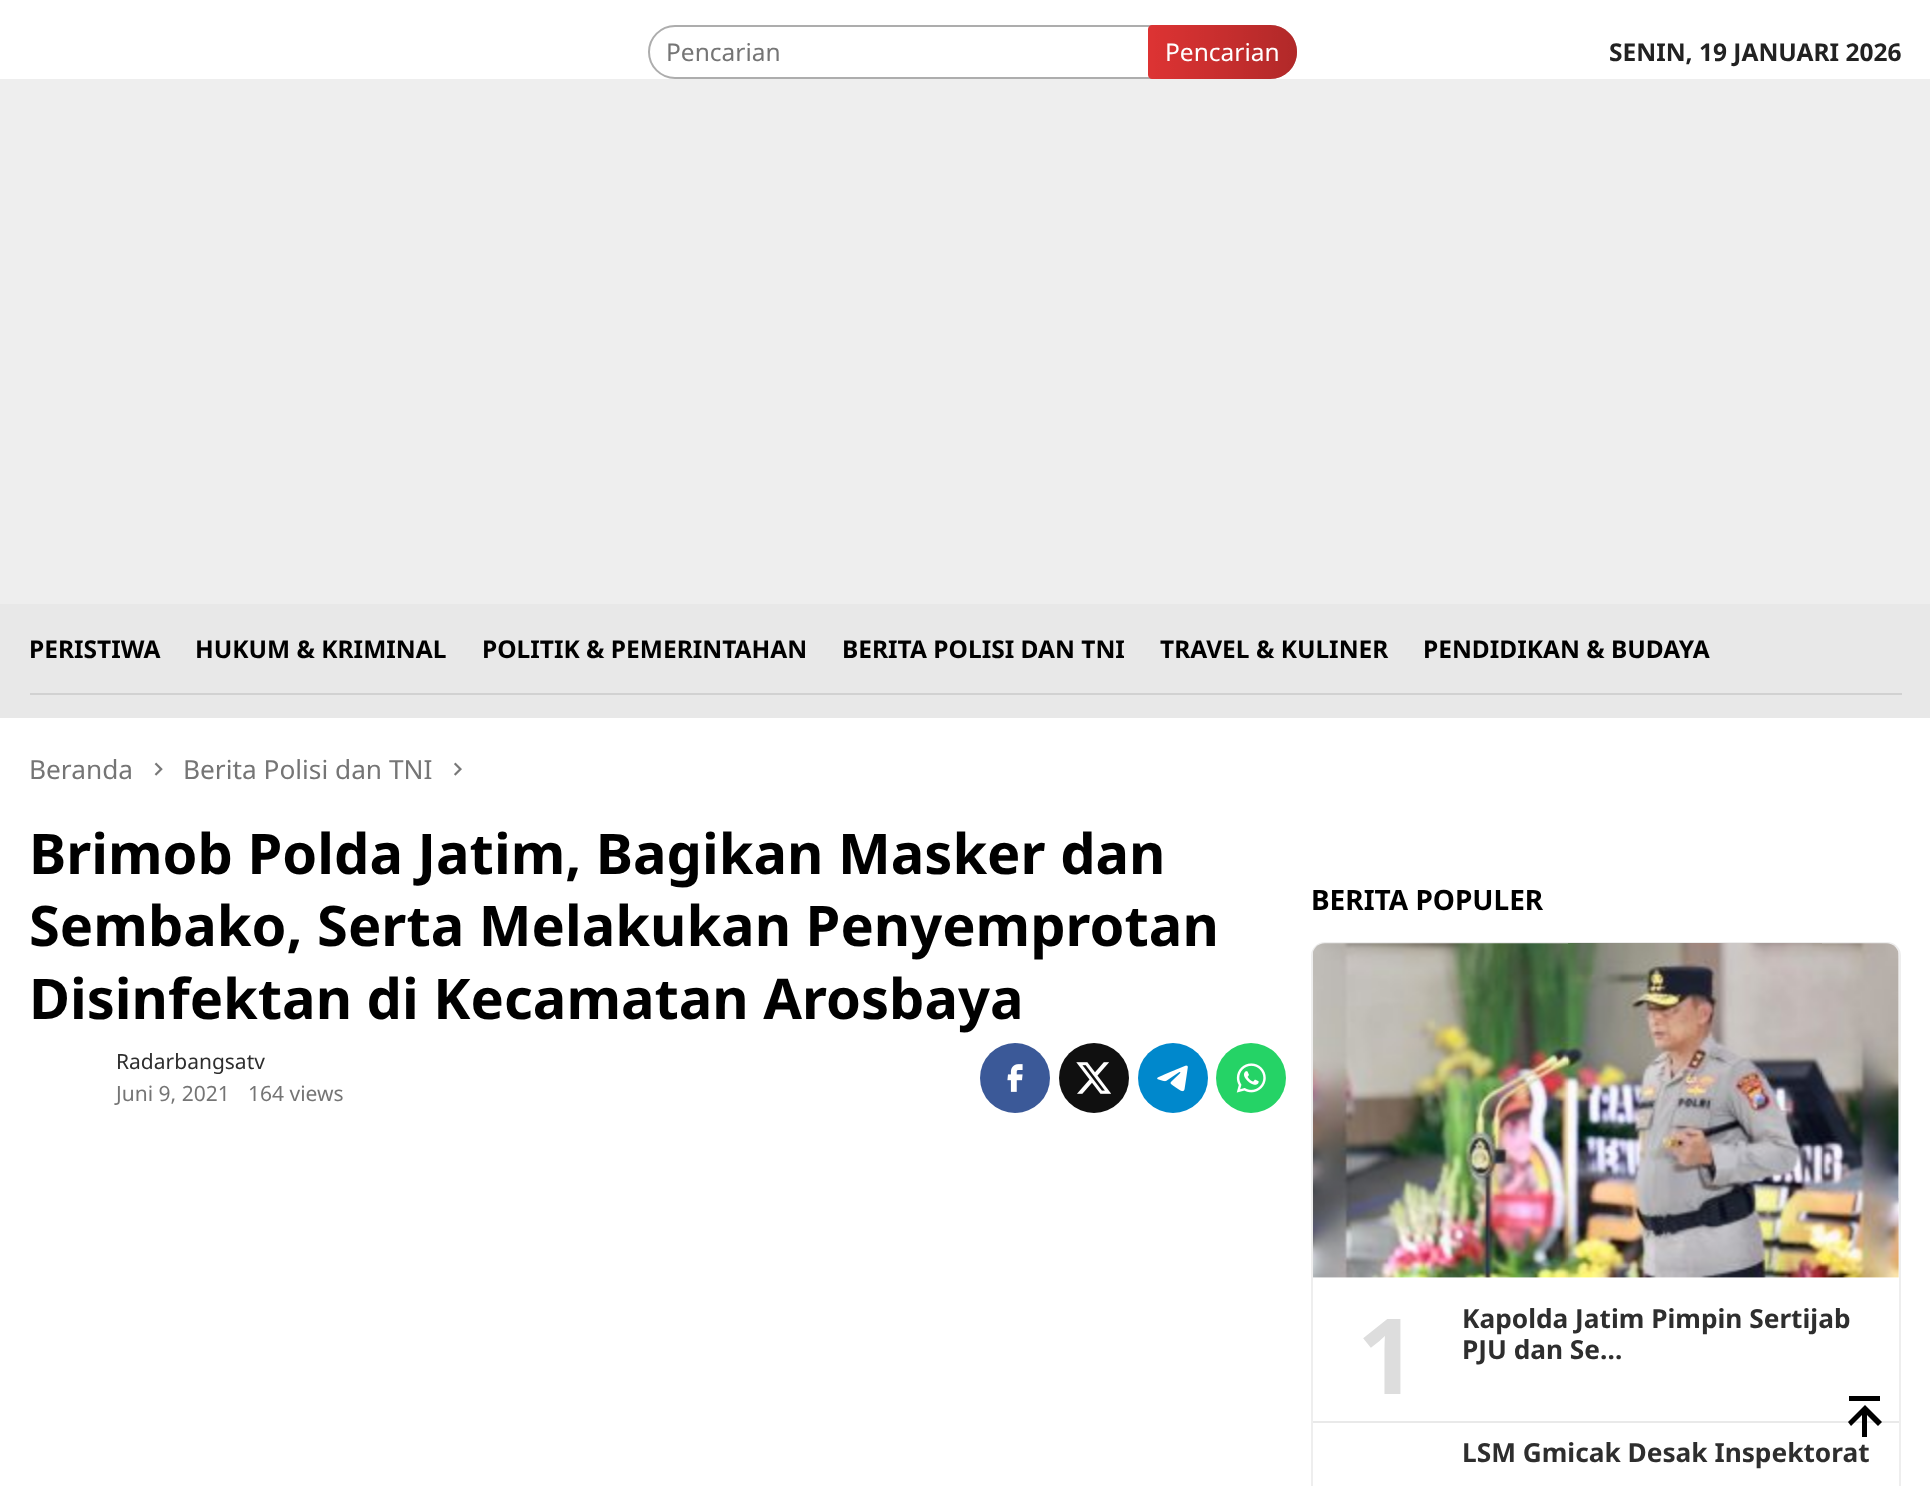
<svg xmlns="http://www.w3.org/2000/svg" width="1930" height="1486">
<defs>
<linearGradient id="g1" gradientUnits="userSpaceOnUse" x1="1148" y1="52" x2="1297" y2="52"><stop offset="0" stop-color="#000" stop-opacity="0"/><stop offset="1" stop-color="#000" stop-opacity="0.2"/></linearGradient>
</defs>
<rect width="100%" height="100%" fill="#eee"/>
<rect width="1930" height="79" fill="#fff"/>
<rect x="649" y="26" width="647" height="52" rx="26" fill="none" stroke="#adadad" stroke-width="2"/>
<text x="666" y="61" style="font-family:Noto Sans;font-size:24.5px;fill:#757575">Pencarian</text>
<path d="M1152 25h118c15 0 27 12 27 27c0 15-12 27-27 27h-118c-2 0-4-2-4-4v-46c0-2 2-4 4-4z" fill="#d33"/>
<path d="M1152 25h118c15 0 27 12 27 27c0 15-12 27-27 27h-118c-2 0-4-2-4-4v-46c0-2 2-4 4-4z" fill="url(#g1)"/>
<text x="1165" y="61" style="font-family:Noto Sans;font-size:24.5px;fill:#fff">Pencarian</text>
<text x="1609" y="61" style="font-family:Noto Sans;font-size:24.5px;font-weight:bold;fill:#222">SENIN, 19 JANUARI 2026</text>
<rect y="604" width="1930" height="114" fill="#e8e8e8"/>
<rect x="30" y="693" width="1872" height="2" fill="#d1d1d1"/>
<text x="29" y="658" style="font-family:Noto Sans;font-size:24.5px;font-weight:bold;fill:#000">PERISTIWA</text>
<text x="195" y="658" style="font-family:Noto Sans;font-size:24.5px;font-weight:bold;fill:#000">HUKUM &amp; KRIMINAL</text>
<text x="482" y="658" style="font-family:Noto Sans;font-size:24.5px;font-weight:bold;fill:#000">POLITIK &amp; PEMERINTAHAN</text>
<text x="842" y="658" style="font-family:Noto Sans;font-size:24.5px;font-weight:bold;fill:#000">BERITA POLISI DAN TNI</text>
<text x="1160" y="658" style="font-family:Noto Sans;font-size:24.5px;font-weight:bold;fill:#000">TRAVEL &amp; KULINER</text>
<text x="1423" y="658" style="font-family:Noto Sans;font-size:24.5px;font-weight:bold;fill:#000">PENDIDIKAN &amp; BUDAYA</text>
<rect y="718" width="1930" height="768" fill="#fff"/>
<text x="29" y="779" style="font-family:Noto Sans;font-size:26.25px;fill:#757575">Beranda</text>
<image x="154" y="762" width="9" height="14" href="media/1.png"/>
<text x="183" y="779" style="font-family:Noto Sans;font-size:26.25px;fill:#757575">Berita Polisi dan TNI</text>
<image x="454" y="762" width="8" height="14" href="media/2.png"/>
<text x="29" y="874" style="font-family:Noto Sans;font-size:56px;font-weight:bold;fill:#000">Brimob Polda Jatim, Bagikan Masker dan</text>
<text x="29" y="946" style="font-family:Noto Sans;font-size:56px;font-weight:bold;fill:#000">Sembako, Serta Melakukan Penyemprotan</text>
<text x="29" y="1019" style="font-family:Noto Sans;font-size:56px;font-weight:bold;fill:#000">Disinfektan di Kecamatan Arosbaya</text>
<text x="116" y="1069" style="font-family:Noto Sans;font-size:21px;fill:#2e2e2e">Radarbangsatv</text>
<text x="116" y="1101" style="font-family:Noto Sans;font-size:21px;fill:#757575">Juni 9, 2021</text>
<text x="248" y="1101" style="font-family:Noto Sans;font-size:21px;fill:#757575">164 views</text>
<circle cx="1015" cy="1078" r="35" fill="#3b5998"/>
<image x="1007" y="1064" width="16" height="28" href="media/3.png"/>
<circle cx="1094" cy="1078" r="35" fill="#101010"/>
<image x="1076" y="1062" width="35" height="32" href="media/4.png"/>
<circle cx="1173" cy="1078" r="35" fill="#08c"/>
<image x="1157" y="1065" width="31" height="27" href="media/5.png"/>
<circle cx="1251" cy="1078" r="35" fill="#25d366"/>
<image x="1236" y="1063" width="30" height="30" href="media/6.png"/>
<text x="1311" y="910" style="font-family:Noto Sans;font-size:28px;font-weight:bold;fill:#000">BERITA POPULER</text>
<rect x="1312" y="943" width="588" height="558" rx="13" fill="none" stroke="#eee" stroke-width="2"/>
<rect x="1313" y="1421" width="586" height="2" fill="#e9e9e9"/>
<image x="1313" y="943" width="586" height="335" href="media/7.png"/>
<text x="1357" y="1394" style="font-family:Noto Sans;font-size:105px;font-weight:bold;letter-spacing:-8px;fill:#ddd">1</text>
<text x="1462" y="1328" style="font-family:Noto Sans;font-size:26.25px;font-weight:bold;fill:#2e2e2e">Kapolda Jatim Pimpin Sertijab</text>
<text x="1462" y="1359" style="font-family:Noto Sans;font-size:26.25px;font-weight:bold;fill:#2e2e2e">PJU dan Se…</text>
<text x="1462" y="1462" style="font-family:Noto Sans;font-size:26.25px;font-weight:bold;fill:#2e2e2e">LSM Gmicak Desak Inspektorat</text>
<path d="M1849 1396h31v5h-31zm2 30l11-11v22h5v-22l11 11l4-4l-17-17l-17 17z" fill="#000"/>
</svg>
